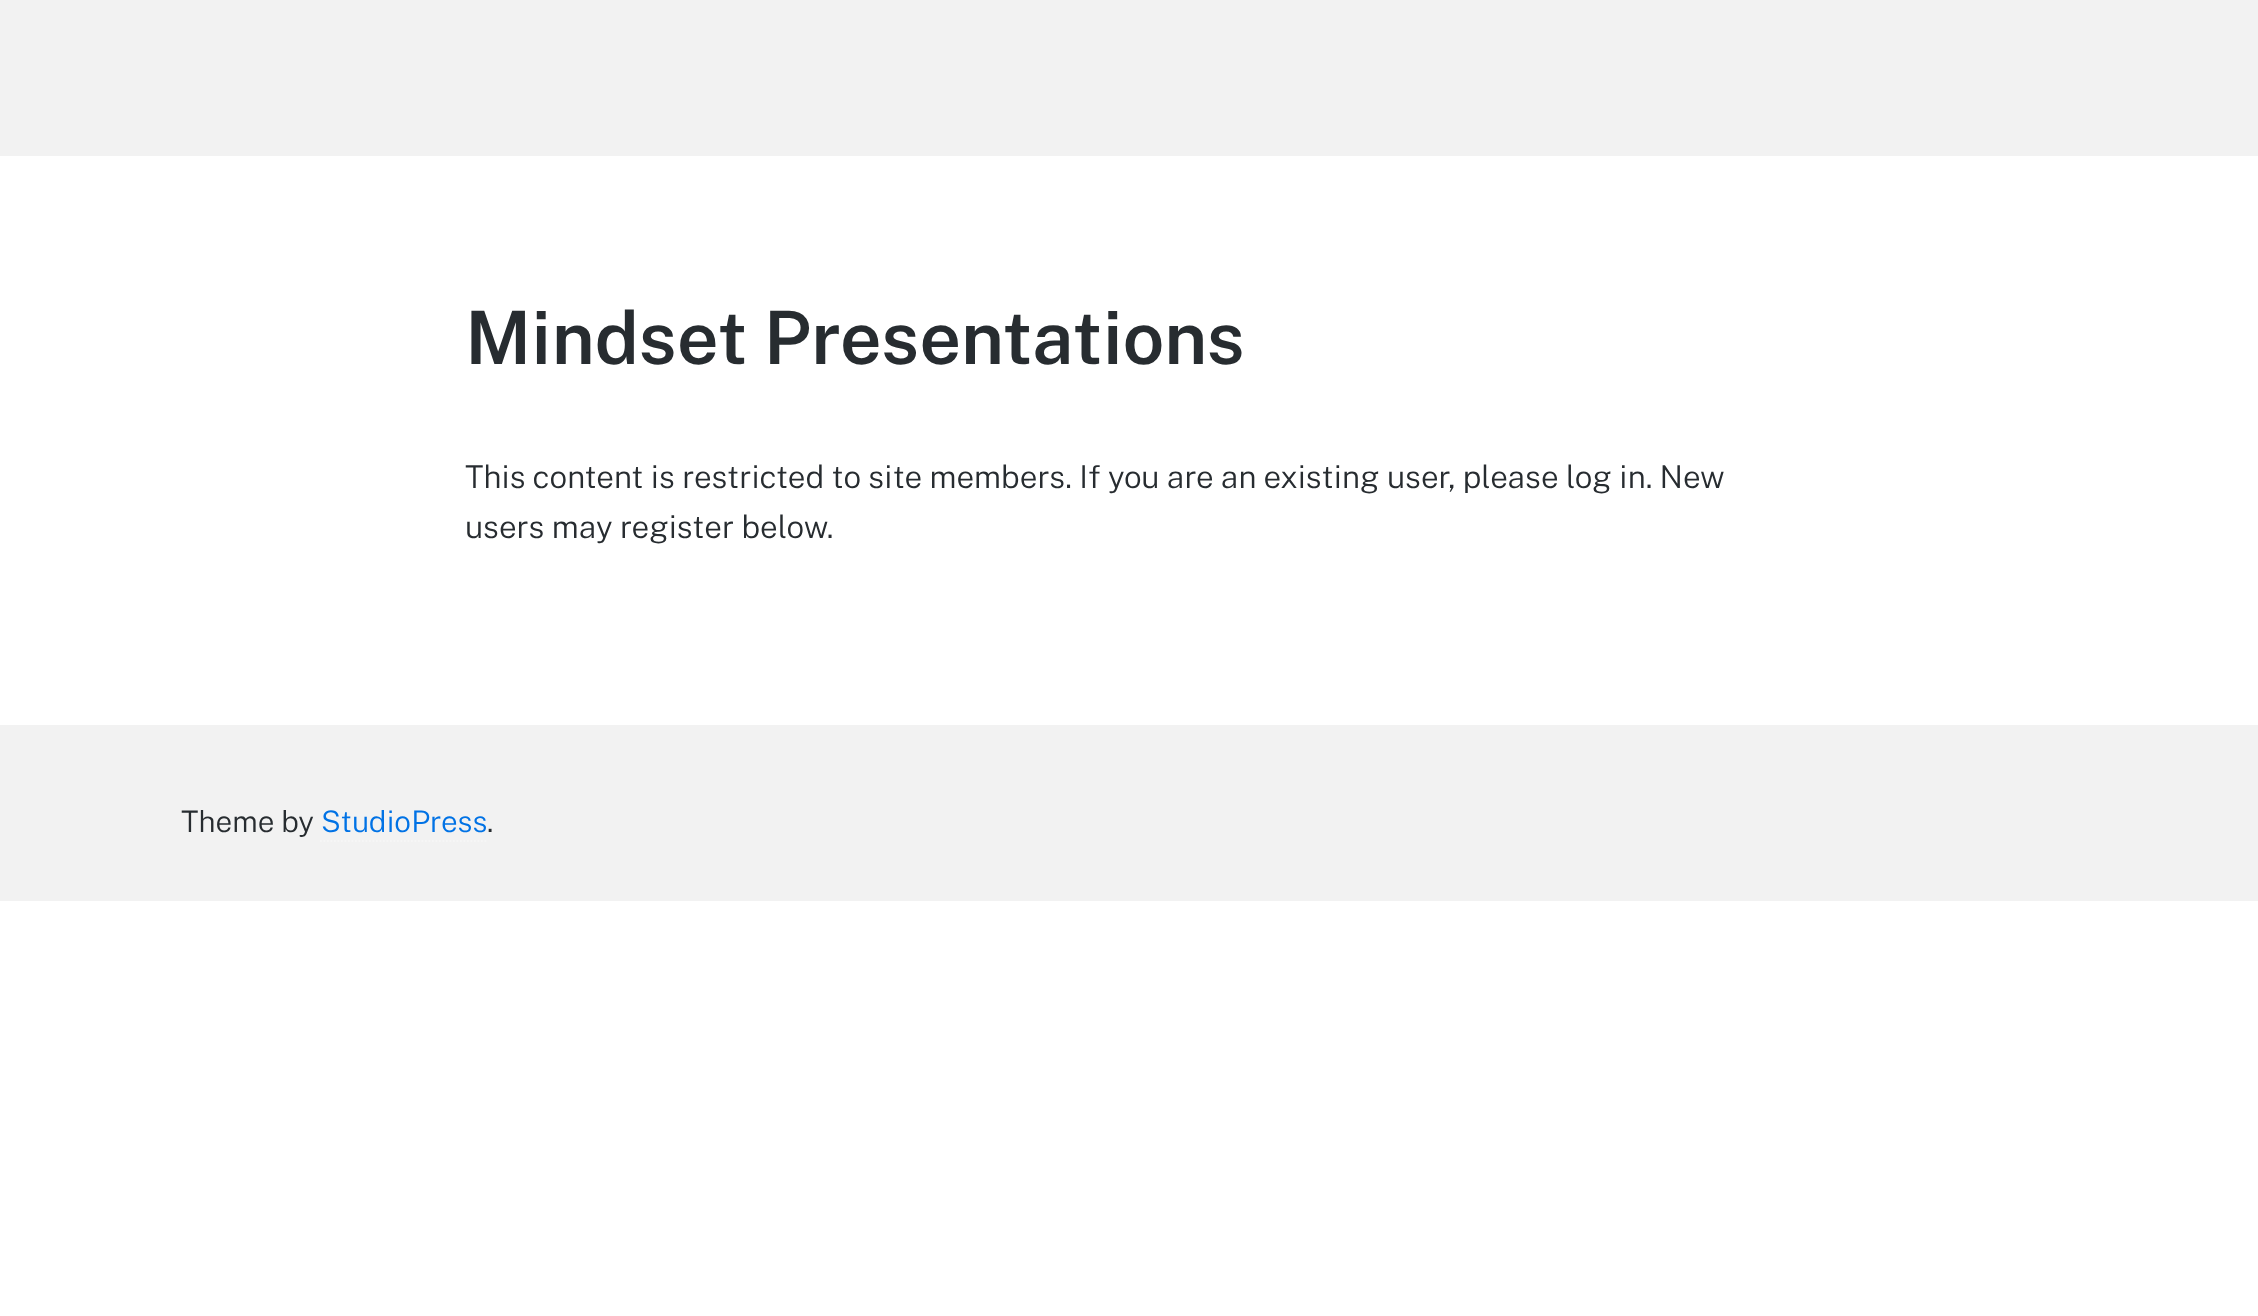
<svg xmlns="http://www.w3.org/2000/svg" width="2258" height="1316">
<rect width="100%" height="100%" fill="#fff"/>
<rect width="2258" height="156" fill="#f2f2f2"/>
<text x="465" y="364" style="font-family:Public Sans;font-size:73.5px;font-weight:600;fill:#272c30">Mindset Presentations</text>
<text x="465" y="488" style="font-family:Public Sans;font-size:31.5px;font-weight:300;fill:#272c30">This content is restricted to site members. If you are an existing user, please log in. New</text>
<text x="465" y="538" style="font-family:Public Sans;font-size:31.5px;font-weight:300;fill:#272c30">users may register below.</text>
<rect y="725" width="2258" height="176" fill="#f2f2f2"/>
<text x="181" y="832" style="font-family:Public Sans;font-size:29.75px;font-weight:300;fill:#272c30">Theme by</text>
<text x="321" y="832" style="font-family:Public Sans;font-size:29.75px;font-weight:300;fill:#0072e5">StudioPress</text>
<path d="M320 841h166.5" fill="none" stroke="#f6f6f6" stroke-width="1.8" stroke-dasharray="1.75 1.75"/>
<text x="487" y="832" style="font-family:Public Sans;font-size:29.75px;font-weight:300;fill:#272c30">.</text>
</svg>
